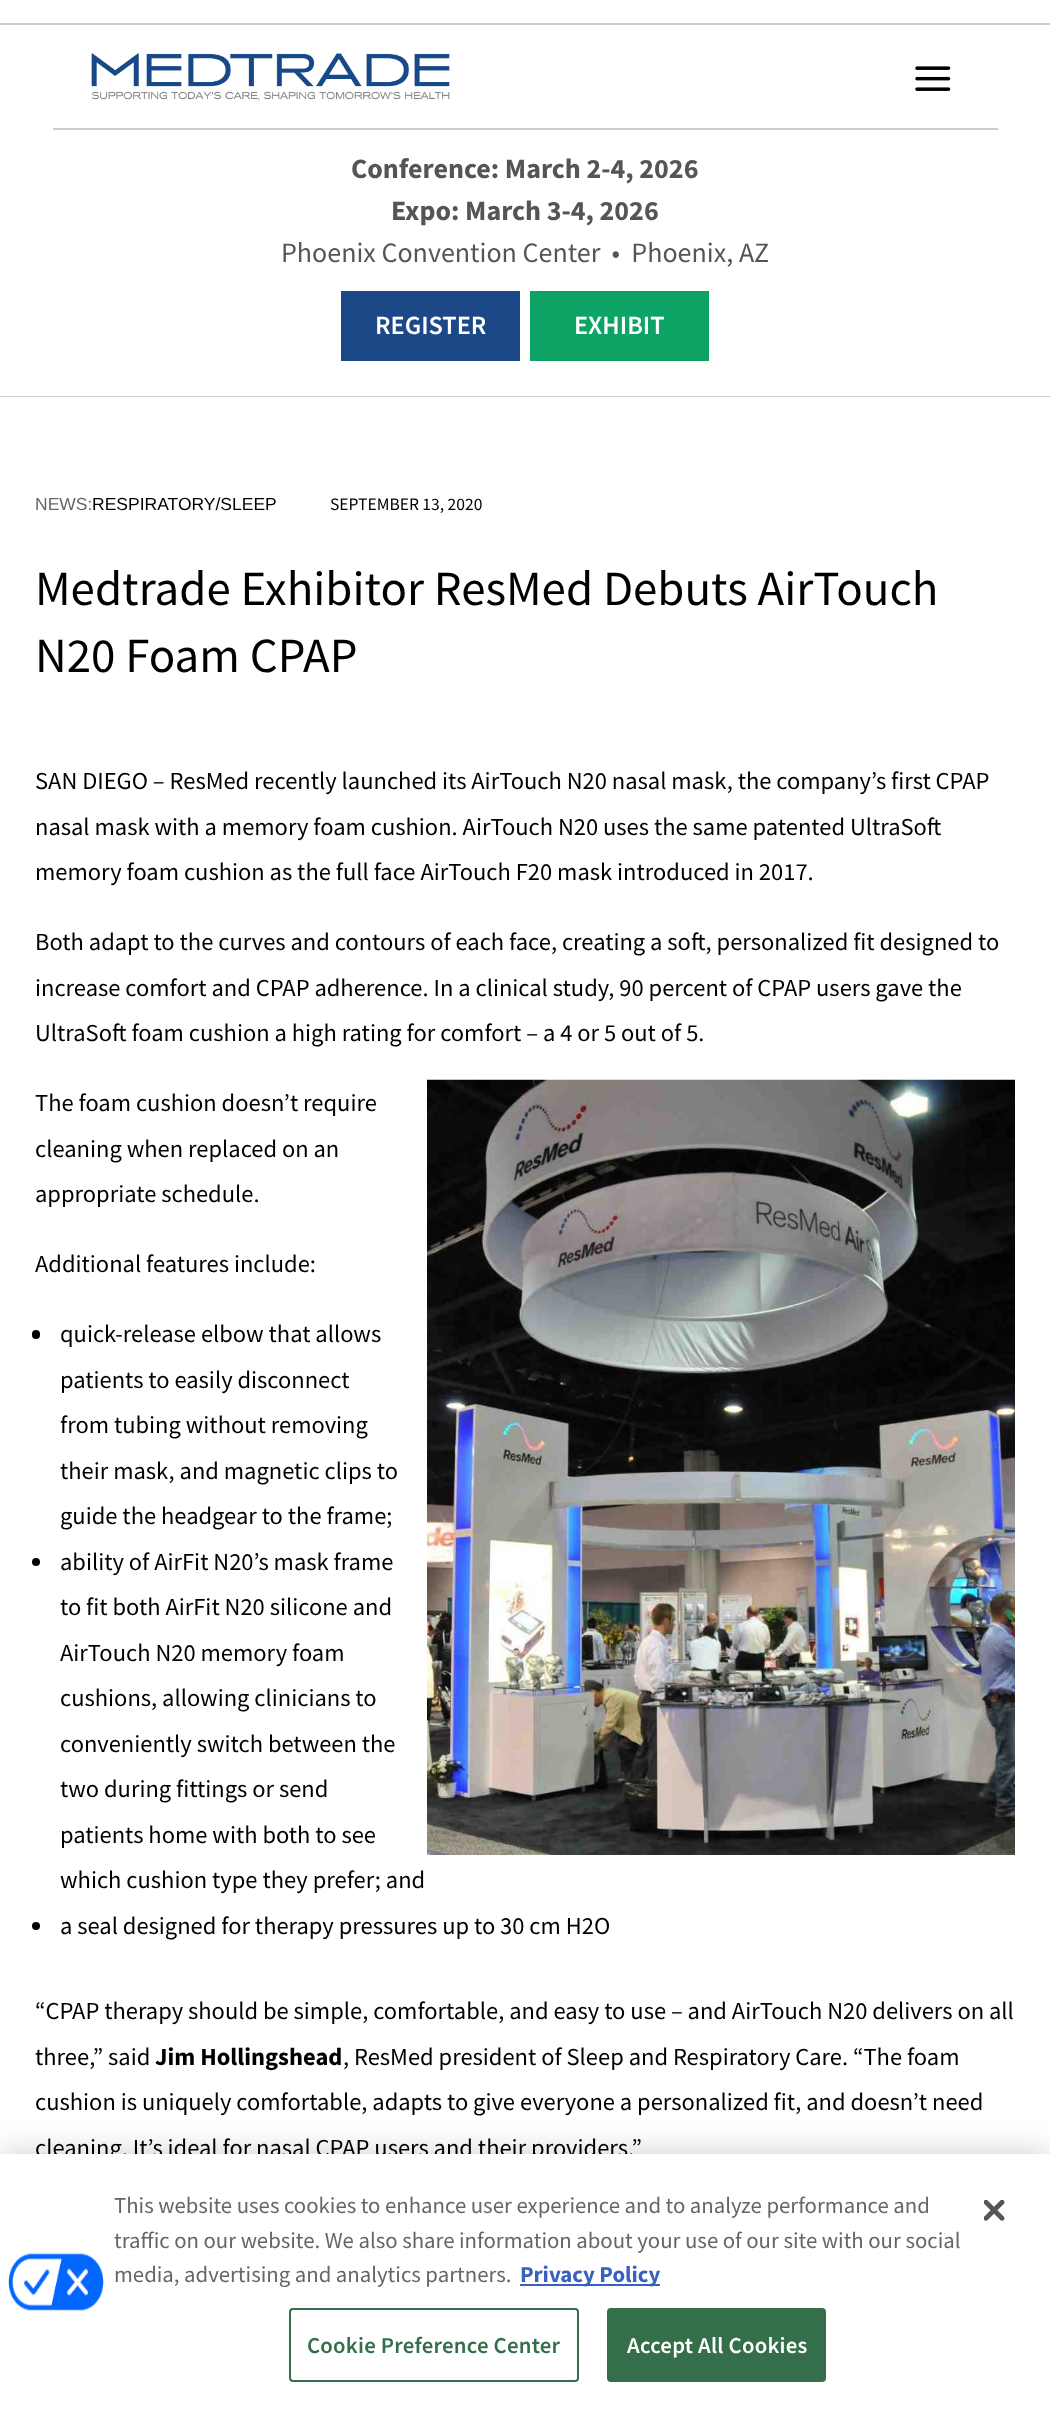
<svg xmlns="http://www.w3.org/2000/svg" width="1050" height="2409">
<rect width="100%" height="100%" fill="#fff"/>
<rect y="396" width="1050" height="1" fill="#ccc"/>
<rect y="23" width="1050" height="2" fill="#ccc"/>
<rect x="53" y="128" width="945" height="2" fill="#ccc"/>
<image x="91" y="53" width="359" height="48" href="media/1.png"/>
<image x="915" y="66" width="36" height="25" href="media/2.png"/>
<text x="351" y="178" style="font-family:Source Sans Pro;font-size:28px;font-weight:bold;fill:#555">Conference: March 2-4, 2026</text>
<text x="391" y="220" style="font-family:Source Sans Pro;font-size:28px;font-weight:bold;fill:#555">Expo: March 3-4, 2026</text>
<text x="281" y="262" style="font-family:Source Sans Pro;font-size:28px;fill:#555" xml:space="preserve">Phoenix Convention Center  •  Phoenix, AZ</text>
<rect x="341" y="291" width="179" height="70" fill="#1d4887"/>
<text x="375" y="334" style="font-family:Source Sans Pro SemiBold;font-size:26.25px;font-weight:600;fill:#fff">REGISTER</text>
<rect x="530" y="291" width="179" height="70" fill="#0ca364"/>
<text x="574" y="334" style="font-family:Source Sans Pro SemiBold;font-size:26.25px;font-weight:600;fill:#fff">EXHIBIT</text>
<text x="35" y="510" style="font-family:Liberation Sans;font-size:17.5px;fill:#666">NEWS:</text>
<text x="92" y="510" style="font-family:Liberation Sans;font-size:17.5px;fill:#000">RESPIRATORY/SLEEP</text>
<text x="330" y="510" style="font-family:Source Sans Pro;font-size:17.5px;fill:#000">SEPTEMBER 13, 2020</text>
<text x="35" y="605" style="font-family:Source Sans Pro;font-size:49px;fill:#000">Medtrade Exhibitor ResMed Debuts AirTouch</text>
<text x="35" y="672" style="font-family:Source Sans Pro;font-size:49px;fill:#000">N20 Foam CPAP</text>
<text x="35" y="789" style="font-family:Source Sans Pro;font-size:24.5px;fill:#000">SAN DIEGO – ResMed recently launched its AirTouch N20 nasal mask, the company’s first CPAP</text>
<text x="35" y="835" style="font-family:Source Sans Pro;font-size:24.5px;fill:#000">nasal mask with a memory foam cushion. AirTouch N20 uses the same patented UltraSoft</text>
<text x="35" y="880" style="font-family:Source Sans Pro;font-size:24.5px;fill:#000">memory foam cushion as the full face AirTouch F20 mask introduced in 2017.</text>
<text x="35" y="950" style="font-family:Source Sans Pro;font-size:24.5px;fill:#000">Both adapt to the curves and contours of each face, creating a soft, personalized fit designed to</text>
<text x="35" y="996" style="font-family:Source Sans Pro;font-size:24.5px;fill:#000">increase comfort and CPAP adherence. In a clinical study, 90 percent of CPAP users gave the</text>
<text x="35" y="1041" style="font-family:Source Sans Pro;font-size:24.5px;fill:#000">UltraSoft foam cushion a high rating for comfort – a 4 or 5 out of 5.</text>
<text x="35" y="1111" style="font-family:Source Sans Pro;font-size:24.5px;fill:#000">The foam cushion doesn’t require</text>
<image x="427" y="1079" width="588" height="776" href="media/3.png"/>
<text x="35" y="1157" style="font-family:Source Sans Pro;font-size:24.5px;fill:#000">cleaning when replaced on an</text>
<text x="35" y="1202" style="font-family:Source Sans Pro;font-size:24.5px;fill:#000">appropriate schedule.</text>
<text x="35" y="1272" style="font-family:Source Sans Pro;font-size:24.5px;fill:#000">Additional features include:</text>
<rect x="32" y="1330" width="8" height="9" rx="4" fill="#000"/>
<text x="60" y="1342" style="font-family:Source Sans Pro;font-size:24.5px;fill:#000">quick-release elbow that allows</text>
<text x="60" y="1388" style="font-family:Source Sans Pro;font-size:24.5px;fill:#000">patients to easily disconnect</text>
<text x="60" y="1433" style="font-family:Source Sans Pro;font-size:24.5px;fill:#000">from tubing without removing</text>
<text x="60" y="1479" style="font-family:Source Sans Pro;font-size:24.5px;fill:#000">their mask, and magnetic clips to</text>
<text x="60" y="1524" style="font-family:Source Sans Pro;font-size:24.5px;fill:#000">guide the headgear to the frame;</text>
<circle cx="36" cy="1562" r="4" fill="#000"/>
<text x="60" y="1570" style="font-family:Source Sans Pro;font-size:24.5px;fill:#000">ability of AirFit N20’s mask frame</text>
<text x="60" y="1615" style="font-family:Source Sans Pro;font-size:24.5px;fill:#000">to fit both AirFit N20 silicone and</text>
<text x="60" y="1661" style="font-family:Source Sans Pro;font-size:24.5px;fill:#000">AirTouch N20 memory foam</text>
<text x="60" y="1706" style="font-family:Source Sans Pro;font-size:24.5px;fill:#000">cushions, allowing clinicians to</text>
<text x="60" y="1752" style="font-family:Source Sans Pro;font-size:24.5px;fill:#000">conveniently switch between the</text>
<text x="60" y="1797" style="font-family:Source Sans Pro;font-size:24.5px;fill:#000">two during fittings or send</text>
<text x="60" y="1843" style="font-family:Source Sans Pro;font-size:24.5px;fill:#000">patients home with both to see</text>
<text x="60" y="1888" style="font-family:Source Sans Pro;font-size:24.5px;fill:#000">which cushion type they prefer; and</text>
<circle cx="36" cy="1926" r="4" fill="#000"/>
<text x="60" y="1934" style="font-family:Source Sans Pro;font-size:24.5px;fill:#000">a seal designed for therapy pressures up to 30 cm H2O</text>
<text x="35" y="2019" style="font-family:Source Sans Pro;font-size:24.5px;fill:#000">“CPAP therapy should be simple, comfortable, and easy to use – and AirTouch N20 delivers on all</text>
<text x="35" y="2065" style="font-family:Source Sans Pro;font-size:24.5px;fill:#000">three,” said</text>
<text x="155" y="2065" style="font-family:Source Sans Pro;font-size:24.5px;font-weight:bold;fill:#000">Jim Hollingshead</text>
<text x="343" y="2065" style="font-family:Source Sans Pro;font-size:24.5px;fill:#000">, ResMed president of Sleep and Respiratory Care. “The foam</text>
<text x="35" y="2110" style="font-family:Source Sans Pro;font-size:24.5px;fill:#000">cushion is uniquely comfortable, adapts to give everyone a personalized fit, and doesn’t need</text>
<text x="35" y="2156" style="font-family:Source Sans Pro;font-size:24.5px;fill:#000">cleaning. It’s ideal for nasal CPAP users and their providers.”</text>
<rect y="2154" width="1050" height="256" fill="#00000033" filter="blur(16px)"/>
<rect y="2154" width="1050" height="255" fill="#fff"/>
<image x="8" y="2253" width="96" height="58" href="media/4.png"/>
<text x="114" y="2213" style="font-family:Source Sans Pro;font-size:22.75px;fill:#666">This website uses cookies to enhance user experience and to analyze performance and</text>
<text x="114" y="2248" style="font-family:Source Sans Pro;font-size:22.75px;fill:#666">traffic on our website. We also share information about your use of our site with our social</text>
<text x="114" y="2282" style="font-family:Source Sans Pro;font-size:22.75px;fill:#666">media, advertising and analytics partners.</text>
<rect x="520" y="2284" width="140" height="2" fill="#3860be"/>
<text x="520" y="2282" style="font-family:Source Sans Pro;font-size:22.75px;font-weight:bold;fill:#3860be">Privacy Policy</text>
<rect x="290" y="2309" width="288" height="72" rx="3" fill="none" stroke="#346e4a" stroke-width="2"/>
<text x="307" y="2353" style="font-family:Source Sans Pro SemiBold;font-size:22.75px;font-weight:600;letter-spacing:0.25px;fill:#346e4a">Cookie Preference Center</text>
<rect x="608" y="2309" width="217" height="72" rx="3" fill="#346e4a" stroke="#346e4a" stroke-width="2"/>
<text x="627" y="2353" style="font-family:Source Sans Pro SemiBold;font-size:22.75px;font-weight:600;letter-spacing:0.25px;fill:#fff">Accept All Cookies</text>
<image x="984" y="2200" width="21" height="21" href="media/5.png"/>
</svg>
